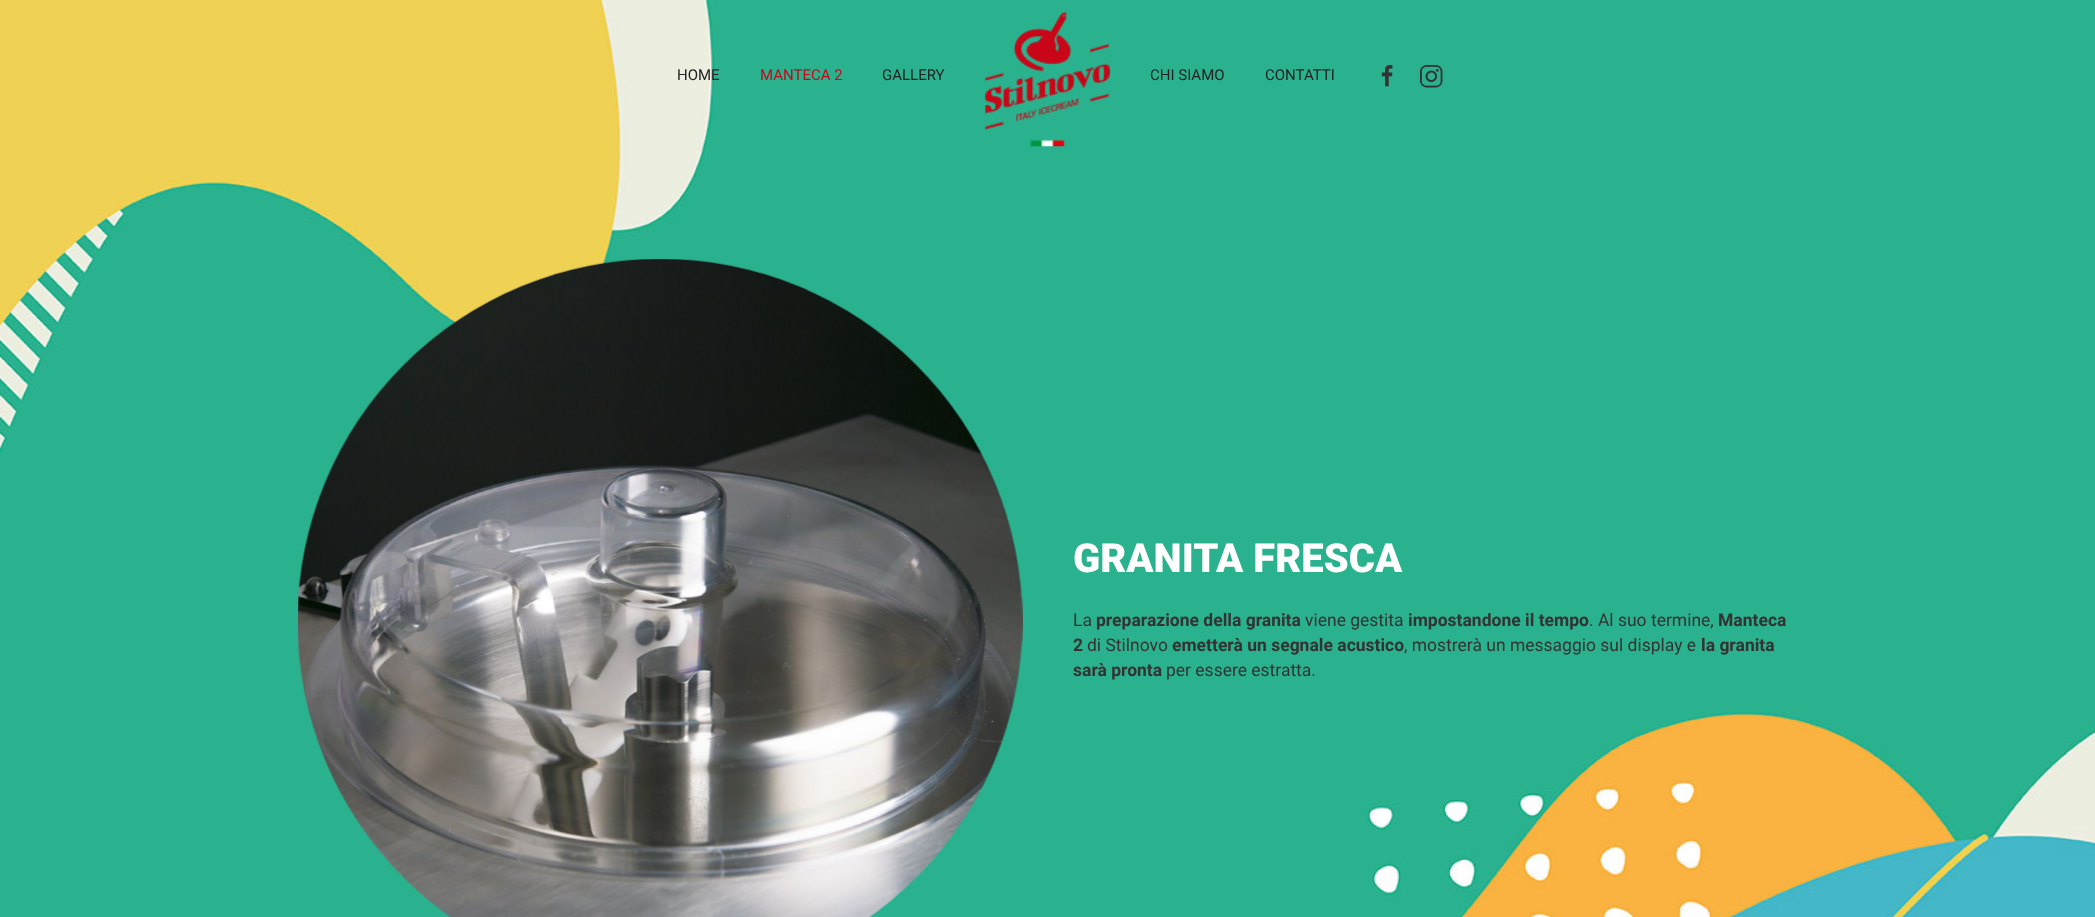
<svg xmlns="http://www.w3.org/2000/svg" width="2095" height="917">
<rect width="100%" height="100%" fill="#fff"/>
<image x="0" y="0" width="2095" height="917" href="media/4.png"/>
<text x="677" y="80" style="font-family:Roboto;font-size:15px;fill:#222">HOME</text>
<text x="760" y="80" style="font-family:Roboto;font-size:15px;fill:#c9061a">MANTECA 2</text>
<text x="882" y="80" style="font-family:Roboto;font-size:15px;fill:#222">GALLERY</text>
<image x="985" y="12" width="125" height="135" href="media/1.png"/>
<text x="1150" y="80" style="font-family:Roboto;font-size:15px;fill:#222">CHI SIAMO</text>
<text x="1265" y="80" style="font-family:Roboto;font-size:15px;fill:#222">CONTATTI</text>
<image x="1381" y="65" width="12" height="22" href="media/2.png"/>
<image x="1420" y="65" width="23" height="23" href="media/3.png"/>
<image x="298" y="259" width="725" height="658" href="media/5.png"/>
<text x="1073" y="572" style="font-family:Roboto;font-size:40px;font-weight:900;fill:#fff">GRANITA FRESCA</text>
<text x="1073" y="626" style="font-family:Roboto;font-size:17.5px;fill:#333">La</text>
<text x="1096" y="626" style="font-family:Roboto;font-size:17.5px;font-weight:bold;fill:#333">preparazione della granita</text>
<text x="1305" y="626" style="font-family:Roboto;font-size:17.5px;fill:#333">viene gestita</text>
<text x="1408" y="626" style="font-family:Roboto;font-size:17.5px;font-weight:bold;fill:#333">impostandone il tempo</text>
<text x="1589" y="626" style="font-family:Roboto;font-size:17.5px;fill:#333">. Al suo termine,</text>
<text x="1718" y="626" style="font-family:Roboto;font-size:17.5px;font-weight:bold;fill:#333">Manteca</text>
<text x="1073" y="651" style="font-family:Roboto;font-size:17.5px;font-weight:bold;fill:#333">2</text>
<text x="1087" y="651" style="font-family:Roboto;font-size:17.5px;fill:#333">di Stilnovo</text>
<text x="1172" y="651" style="font-family:Roboto;font-size:17.5px;font-weight:bold;fill:#333">emetterà un segnale acustico</text>
<text x="1404" y="651" style="font-family:Roboto;font-size:17.5px;fill:#333">, mostrerà un messaggio sul display e</text>
<text x="1701" y="651" style="font-family:Roboto;font-size:17.5px;font-weight:bold;fill:#333">la granita</text>
<text x="1073" y="676" style="font-family:Roboto;font-size:17.5px;font-weight:bold;fill:#333">sarà pronta</text>
<text x="1166" y="676" style="font-family:Roboto;font-size:17.5px;fill:#333">per essere estratta.</text>
</svg>
